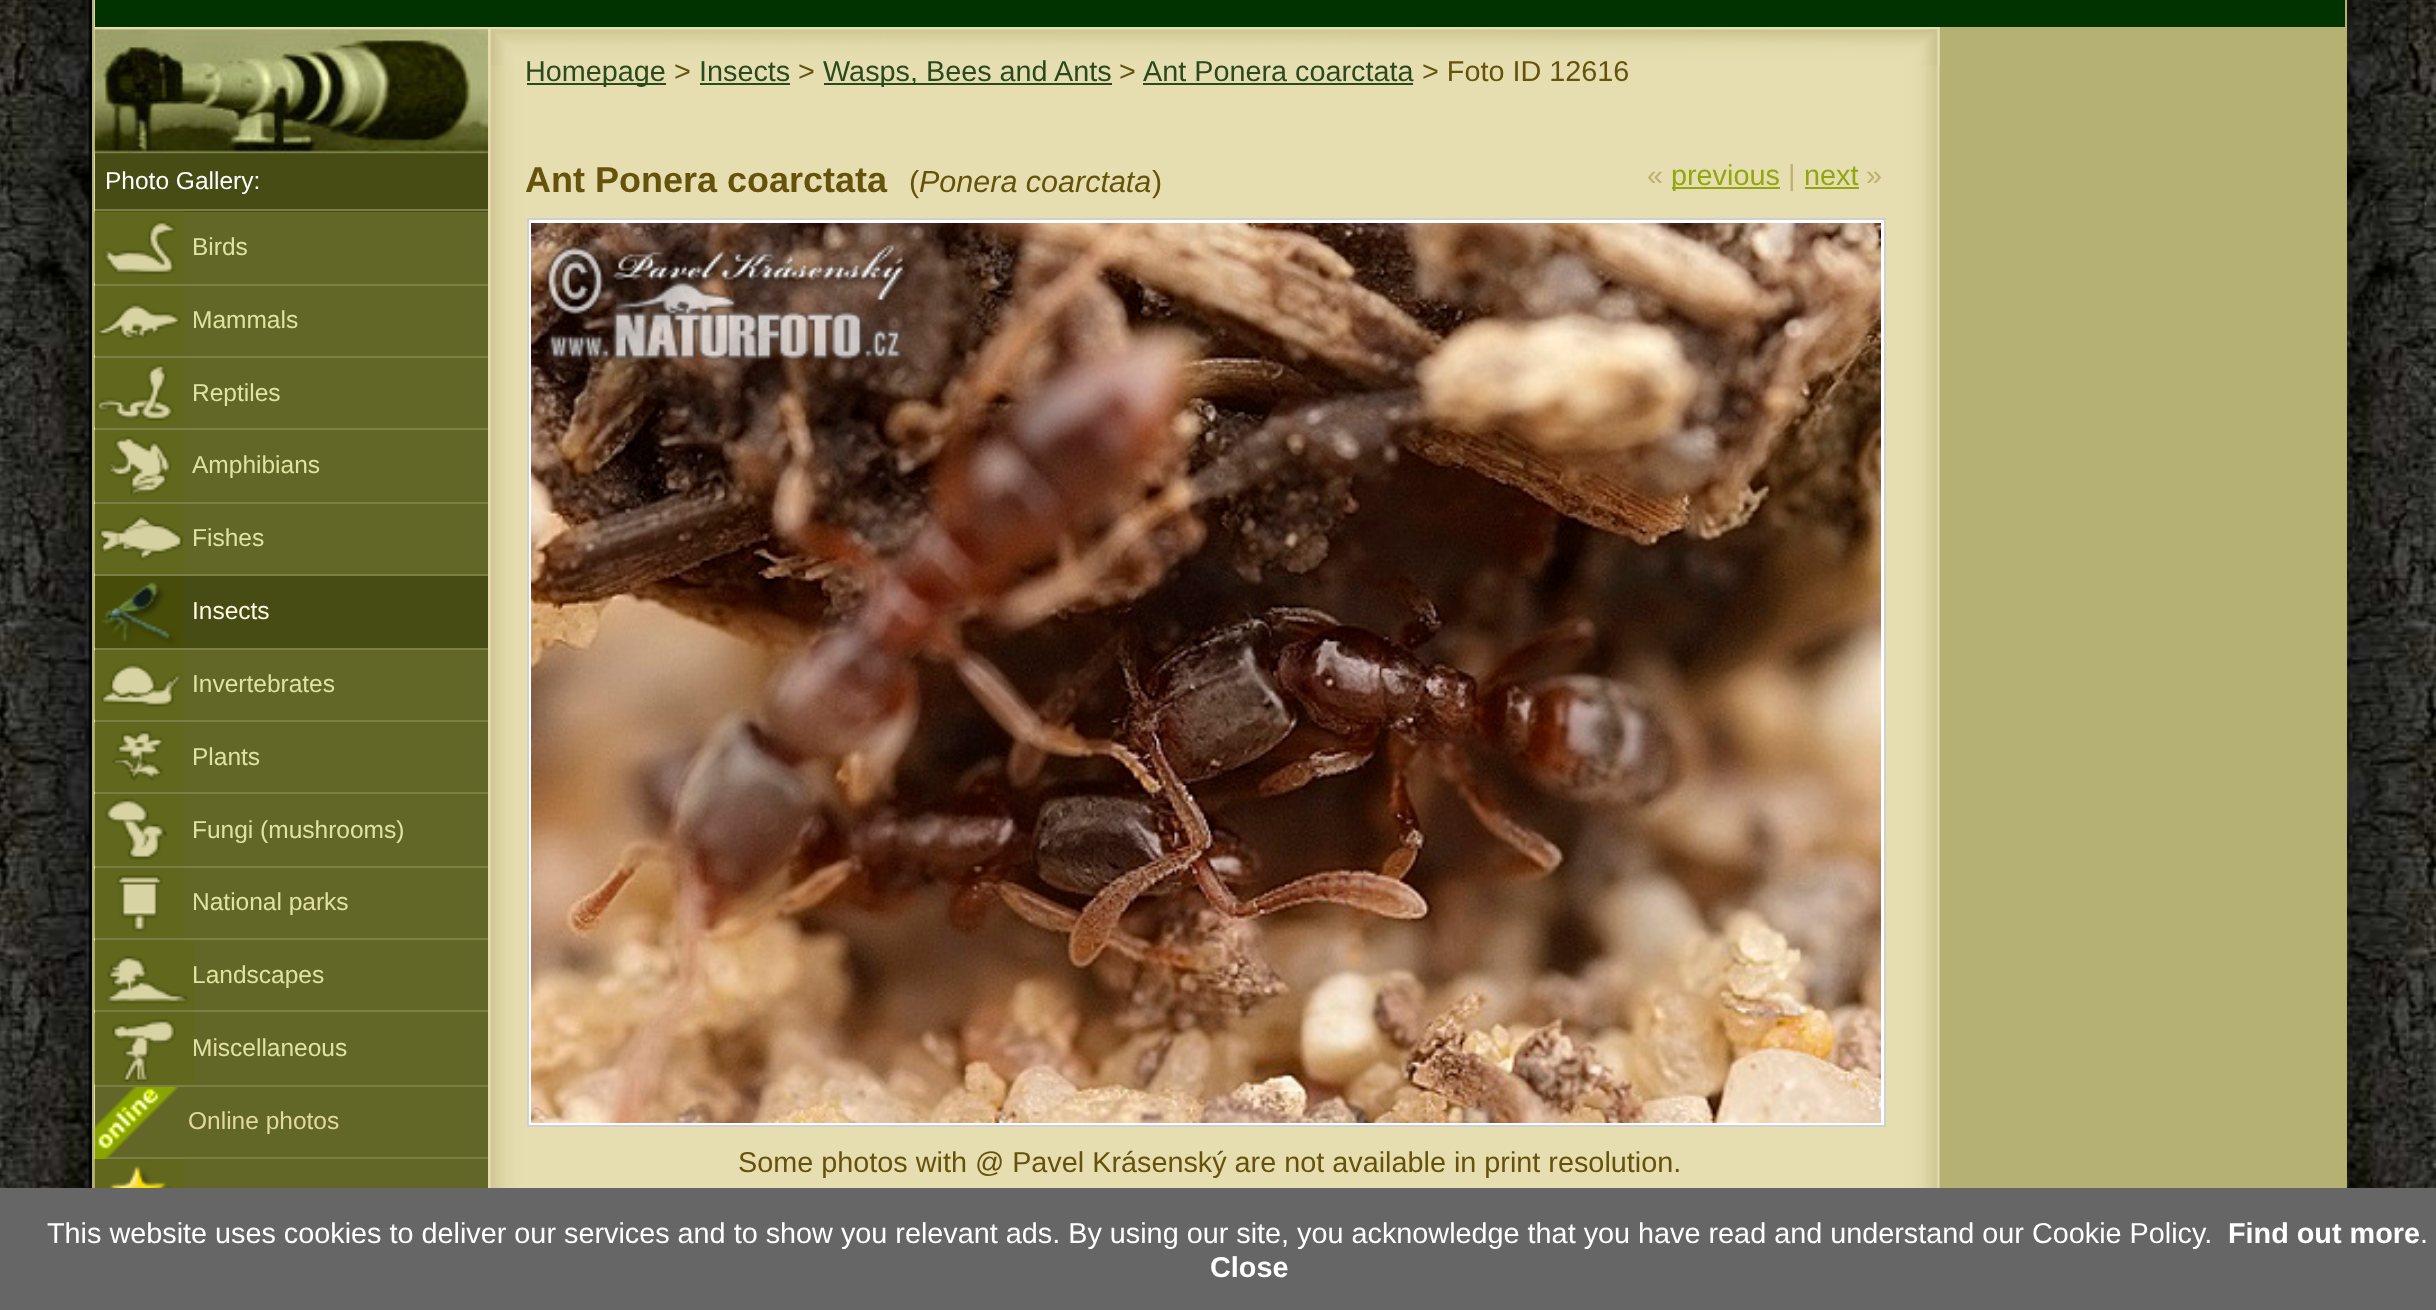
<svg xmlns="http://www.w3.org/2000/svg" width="2436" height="1310">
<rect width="100%" height="100%" fill="#fff"/>
<image x="0" y="0" width="2436" height="1188" href="media/1.png"/>
<rect x="94" width="1" height="1188" fill="#fff"/>
<image x="94" y="0" width="394" height="1188" href="media/2.png"/>
<rect x="2345" width="2" height="1188" fill="#b5b06c"/>
<rect x="92" width="2" height="1188" fill="#b5b06c"/>
<rect x="95" width="2250" height="27" fill="#013300"/>
<rect x="95" y="27" width="393" height="2" fill="#e6deb0"/>
<rect x="95" y="153" width="393" height="59" fill="#474c14"/>
<rect x="488" y="29" width="2" height="1159" fill="#e6deb0"/>
<image x="94" y="29" width="395" height="125" href="media/3.png"/>
<rect x="95" y="209" width="393" height="2" fill="#7b7f44"/>
<text x="105" y="189" style="font-family:Liberation Sans;font-size:24.5px;fill:#fff">Photo Gallery:</text>
<image x="94" y="211" width="91" height="73" href="media/4.png"/>
<rect x="95" y="284" width="393" height="2" fill="#7b7f44"/>
<rect x="95" y="212" width="393" height="72" fill="#626727"/>
<image x="94" y="211" width="91" height="73" href="media/5.png"/>
<text x="192" y="255" style="font-family:Liberation Sans;font-size:24.5px;fill:#e0e2a0">Birds</text>
<image x="94" y="286" width="1" height="70" href="media/6.png"/>
<rect x="95" y="356" width="393" height="2" fill="#7b7f44"/>
<rect x="95" y="286" width="393" height="70" fill="#626727"/>
<image x="94" y="286" width="91" height="70" href="media/7.png"/>
<text x="192" y="328" style="font-family:Liberation Sans;font-size:24.5px;fill:#e0e2a0">Mammals</text>
<image x="94" y="358" width="1" height="70" href="media/6.png"/>
<rect x="95" y="428" width="393" height="2" fill="#7b7f44"/>
<rect x="95" y="358" width="393" height="70" fill="#626727"/>
<image x="94" y="358" width="91" height="70" href="media/8.png"/>
<text x="192" y="401" style="font-family:Liberation Sans;font-size:24.5px;fill:#e0e2a0">Reptiles</text>
<image x="94" y="430" width="1" height="72" href="media/9.png"/>
<rect x="95" y="502" width="393" height="2" fill="#7b7f44"/>
<rect x="95" y="430" width="393" height="72" fill="#626727"/>
<image x="94" y="430" width="91" height="72" href="media/10.png"/>
<text x="192" y="473" style="font-family:Liberation Sans;font-size:24.5px;fill:#e0e2a0">Amphibians</text>
<image x="94" y="504" width="1" height="70" href="media/11.png"/>
<rect x="95" y="574" width="393" height="2" fill="#7b7f44"/>
<rect x="95" y="504" width="393" height="70" fill="#626727"/>
<image x="94" y="504" width="91" height="70" href="media/12.png"/>
<text x="192" y="546" style="font-family:Liberation Sans;font-size:24.5px;fill:#e0e2a0">Fishes</text>
<rect x="95" y="648" width="393" height="2" fill="#7b7f44"/>
<rect x="95" y="576" width="393" height="72" fill="#474c14"/>
<image x="94" y="576" width="91" height="72" href="media/13.png"/>
<text x="192" y="619" style="font-family:Liberation Sans;font-size:24.5px;fill:#fef9df">Insects</text>
<image x="94" y="650" width="1" height="70" href="media/14.png"/>
<rect x="95" y="720" width="393" height="2" fill="#7b7f44"/>
<rect x="95" y="650" width="393" height="70" fill="#626727"/>
<image x="94" y="650" width="91" height="70" href="media/15.png"/>
<text x="192" y="692" style="font-family:Liberation Sans;font-size:24.5px;fill:#e0e2a0">Invertebrates</text>
<image x="94" y="722" width="1" height="70" href="media/14.png"/>
<rect x="95" y="792" width="393" height="2" fill="#7b7f44"/>
<rect x="95" y="722" width="393" height="70" fill="#626727"/>
<image x="94" y="722" width="91" height="70" href="media/16.png"/>
<text x="192" y="765" style="font-family:Liberation Sans;font-size:24.5px;fill:#e0e2a0">Plants</text>
<rect x="95" y="868" width="393" height="1" fill="#626727"/>
<image x="94" y="794" width="1" height="73" href="media/17.png"/>
<rect x="95" y="866" width="393" height="2" fill="#7b7f44"/>
<rect x="95" y="794" width="393" height="72" fill="#626727"/>
<image x="94" y="794" width="91" height="73" href="media/18.png"/>
<text x="192" y="838" style="font-family:Liberation Sans;font-size:24.5px;fill:#e0e2a0">Fungi (mushrooms)</text>
<rect x="95" y="940" width="393" height="1" fill="#626727"/>
<image x="94" y="868" width="91" height="71" href="media/19.png"/>
<rect x="95" y="938" width="393" height="2" fill="#7b7f44"/>
<rect x="95" y="869" width="393" height="69" fill="#626727"/>
<image x="94" y="868" width="91" height="71" href="media/20.png"/>
<text x="192" y="910" style="font-family:Liberation Sans;font-size:24.5px;fill:#e0e2a0">National parks</text>
<rect x="95" y="1012" width="393" height="1" fill="#626727"/>
<image x="94" y="940" width="100" height="71" href="media/21.png"/>
<rect x="95" y="1010" width="393" height="2" fill="#7b7f44"/>
<rect x="95" y="941" width="393" height="69" fill="#626727"/>
<image x="94" y="940" width="100" height="71" href="media/22.png"/>
<text x="192" y="983" style="font-family:Liberation Sans;font-size:24.5px;fill:#e0e2a0">Landscapes</text>
<image x="94" y="1012" width="100" height="73" href="media/23.png"/>
<rect x="95" y="1085" width="393" height="2" fill="#7b7f44"/>
<rect x="95" y="1013" width="393" height="72" fill="#626727"/>
<image x="94" y="1012" width="100" height="73" href="media/24.png"/>
<text x="192" y="1056" style="font-family:Liberation Sans;font-size:24.5px;fill:#e0e2a0">Miscellaneous</text>
<rect x="95" y="1087" width="393" height="70" fill="#626727"/>
<rect x="95" y="1157" width="393" height="2" fill="#7b7f44"/>
<image x="94" y="1087" width="85" height="72" href="media/25.png"/>
<text x="188" y="1129" style="font-family:Liberation Sans;font-size:24.5px;fill:#e2d9a0">Online photos</text>
<image x="94" y="1159" width="1" height="29" href="media/26.png"/>
<rect x="184" y="1159" width="304" height="29" fill="#626727"/>
<image x="94" y="1159" width="91" height="29" href="media/27.png"/>
<image x="490" y="29" width="1450" height="1159" href="media/28.png"/>
<image x="491" y="29" width="1449" height="37" href="media/29.png"/>
<rect x="488" y="27" width="1452" height="2" fill="#e3e1b1"/>
<rect x="527" y="83" width="139" height="2" fill="#2a491d"/>
<text x="525" y="81" style="font-family:Liberation Sans;font-size:28.8px;fill:#2a491d">Homepage</text>
<text x="674" y="81" style="font-family:Liberation Sans;font-size:28.8px;fill:#65530b">&gt;</text>
<text x="699" y="81" style="font-family:Liberation Sans;font-size:28.8px;fill:#2a491d">Insects</text>
<rect x="700" y="83" width="90" height="2" fill="#2a491d"/>
<text x="798" y="81" style="font-family:Liberation Sans;font-size:28.8px;fill:#65530b">&gt;</text>
<rect x="824" y="83" width="288" height="2" fill="#2a491d"/>
<text x="823" y="81" style="font-family:Liberation Sans;font-size:28.8px;fill:#2a491d">Wasps, Bees and Ants</text>
<text x="1119" y="81" style="font-family:Liberation Sans;font-size:28.8px;fill:#65530b">&gt;</text>
<text x="1143" y="81" style="font-family:Liberation Sans;font-size:28.8px;fill:#2a491d">Ant Ponera coarctata</text>
<rect x="1143" y="83" width="270" height="2" fill="#2a491d"/>
<text x="1422" y="81" style="font-family:Liberation Sans;font-size:28.8px;fill:#65530b">&gt; Foto ID 12616</text>
<text x="525" y="192" style="font-family:Liberation Sans;font-size:36px;font-weight:bold;fill:#65530b">Ant Ponera coarctata</text>
<text x="909" y="192" style="font-family:Liberation Sans;font-size:30.5px;fill:#65530b">(</text>
<text x="919" y="192" style="font-family:Liberation Sans;font-size:30.5px;font-style:italic;fill:#65530b">Ponera coarctata</text>
<text x="1152" y="192" style="font-family:Liberation Sans;font-size:30.5px;fill:#65530b">)</text>
<text x="1647" y="185" style="font-family:Liberation Sans;font-size:28.8px;fill:#bfb072">«</text>
<rect x="1672" y="187" width="108" height="2" fill="#92a60e"/>
<text x="1671" y="185" style="font-family:Liberation Sans;font-size:28.8px;fill:#92a60e">previous</text>
<text x="1788" y="185" style="font-family:Liberation Sans;font-size:28.8px;fill:#bfb072">|</text>
<text x="1804" y="185" style="font-family:Liberation Sans;font-size:28.8px;fill:#92a60e">next</text>
<rect x="1805" y="187" width="54" height="2" fill="#92a60e"/>
<text x="1866" y="185" style="font-family:Liberation Sans;font-size:28.8px;fill:#bfb072">»</text>
<rect x="528" y="219" width="1357" height="907" fill="#fff" stroke="#d0d0d0" stroke-width="2"/>
<image x="531" y="223" width="1350" height="900" href="media/30.png"/>
<text x="738" y="1172" style="font-family:Liberation Sans;font-size:28.8px;fill:#65530b">Some photos with @ Pavel Krásenský are not available in print resolution.</text>
<rect x="1940" y="27" width="405" height="1161" fill="#b5b172"/>
<rect y="1188" width="2436" height="122" fill="#666"/>
<text x="47" y="1243" style="font-family:Liberation Sans;font-size:28.8px;fill:#fff">This website uses cookies to deliver our services and to show you relevant ads. By using our site, you acknowledge that you have read and understand our Cookie Policy.</text>
<text x="2228" y="1243" style="font-family:Liberation Sans;font-size:28.8px;font-weight:bold;fill:#fff">Find out more</text>
<text x="2420" y="1243" style="font-family:Liberation Sans;font-size:28.8px;fill:#fff">.</text>
<text x="1210" y="1277" style="font-family:Liberation Sans;font-size:28.8px;font-weight:bold;fill:#fff">Close</text>
</svg>
